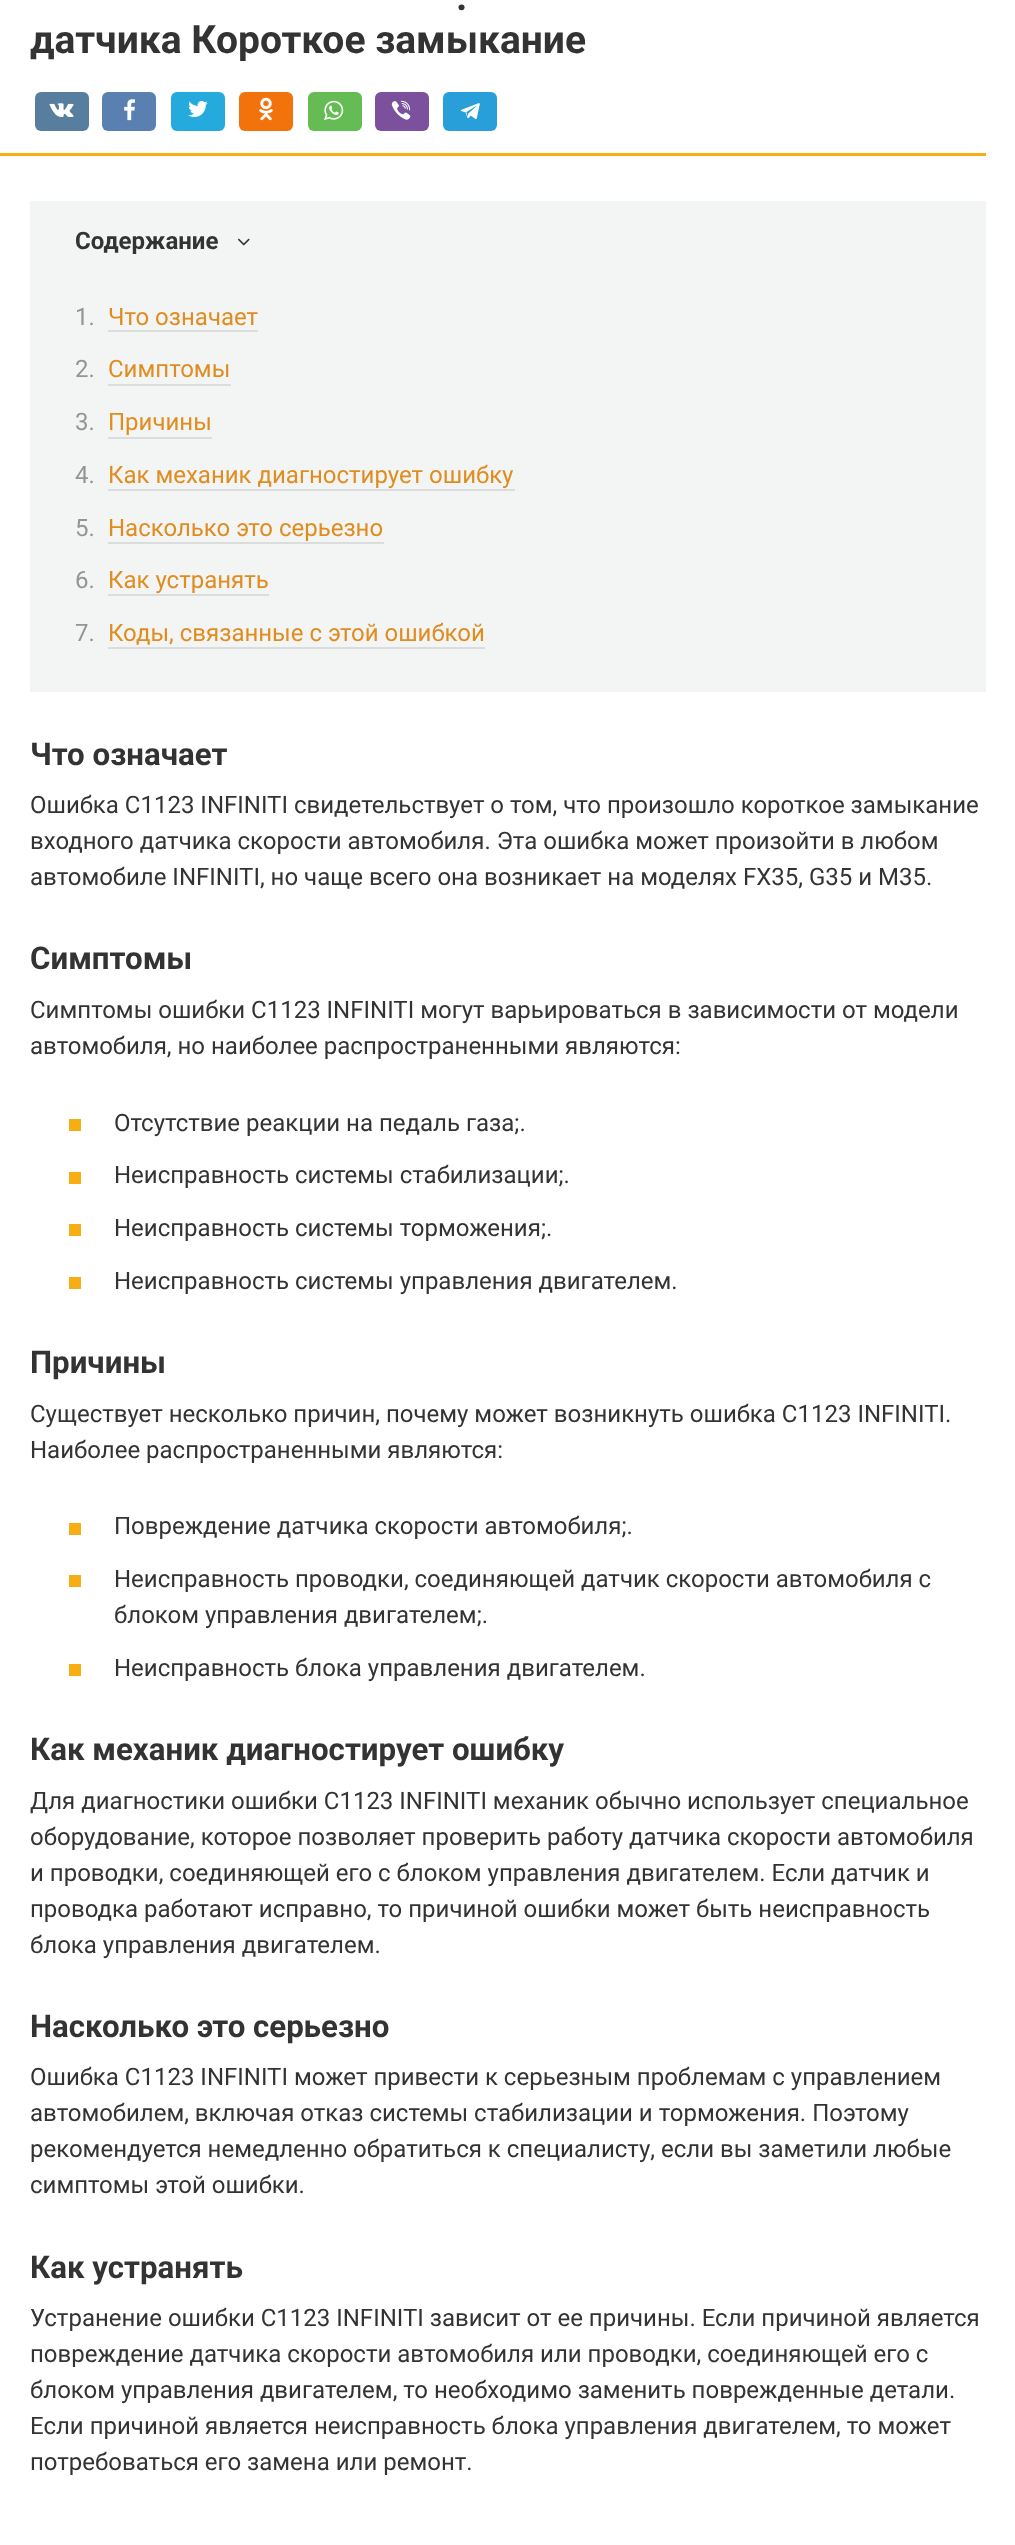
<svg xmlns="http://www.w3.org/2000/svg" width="1015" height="2545">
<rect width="100%" height="100%" fill="#fff"/>
<text x="456" y="10" style="font-family:Roboto;font-size:39px;font-weight:bold;fill:#333">.</text>
<text x="30" y="53" style="font-family:Roboto;font-size:39px;font-weight:bold;fill:#333">датчика Короткое замыкание</text>
<rect x="35" y="92" width="54" height="39" rx="6" fill="#587e9f"/>
<image x="49" y="103" width="25" height="14" href="media/1.png"/>
<rect x="102" y="92" width="54" height="39" rx="6" fill="#5a80b1"/>
<image x="124" y="99" width="11" height="22" href="media/2.png"/>
<rect x="171" y="92" width="54" height="39" rx="6" fill="#24aadd"/>
<image x="188" y="101" width="20" height="16" href="media/3.png"/>
<rect x="239" y="92" width="54" height="39" rx="6" fill="#f2720c"/>
<image x="259" y="97" width="14" height="24" href="media/4.png"/>
<rect x="308" y="92" width="54" height="39" rx="6" fill="#65bc54"/>
<image x="324" y="100" width="20" height="21" href="media/5.png"/>
<rect x="375" y="92" width="54" height="39" rx="6" fill="#7b519d"/>
<image x="391" y="100" width="20" height="20" href="media/6.png"/>
<rect x="443" y="92" width="54" height="39" rx="6" fill="#289fd9"/>
<image x="460" y="103" width="20" height="16" href="media/7.png"/>
<rect y="153" width="986" height="3" fill="#f7ae14"/>
<rect x="30" y="201" width="956" height="491" fill="#f3f4f4"/>
<text x="75" y="249" style="font-family:Roboto;font-size:24px;font-weight:bold;fill:#333">Содержание</text>
<image x="237" y="238" width="13" height="8" href="media/8.png"/>
<text x="75" y="325" style="font-family:Roboto;font-size:24px;fill:#939494">1.</text>
<text x="108" y="325" style="font-family:Roboto;font-size:24px;fill:#e08c1f">Что означает</text>
<rect x="108" y="330" width="150" height="2" fill="#dbdcdc"/>
<text x="75" y="377" style="font-family:Roboto;font-size:24px;fill:#939494">2.</text>
<text x="108" y="377" style="font-family:Roboto;font-size:24px;fill:#e08c1f">Симптомы</text>
<rect x="108" y="384" width="123" height="2" fill="#dbdcdc"/>
<text x="75" y="430" style="font-family:Roboto;font-size:24px;fill:#939494">3.</text>
<text x="108" y="430" style="font-family:Roboto;font-size:24px;fill:#e08c1f">Причины</text>
<rect x="108" y="437" width="104" height="2" fill="#dbdcdc"/>
<text x="75" y="483" style="font-family:Roboto;font-size:24px;fill:#939494">4.</text>
<text x="108" y="483" style="font-family:Roboto;font-size:24px;fill:#e08c1f">Как механик диагностирует ошибку</text>
<rect x="108" y="489" width="407" height="2" fill="#dbdcdc"/>
<text x="75" y="536" style="font-family:Roboto;font-size:24px;fill:#939494">5.</text>
<text x="108" y="536" style="font-family:Roboto;font-size:24px;fill:#e08c1f">Насколько это серьезно</text>
<rect x="108" y="542" width="276" height="2" fill="#dbdcdc"/>
<text x="75" y="588" style="font-family:Roboto;font-size:24px;fill:#939494">6.</text>
<text x="108" y="588" style="font-family:Roboto;font-size:24px;fill:#e08c1f">Как устранять</text>
<rect x="108" y="594" width="161" height="2" fill="#dbdcdc"/>
<text x="75" y="641" style="font-family:Roboto;font-size:24px;fill:#939494">7.</text>
<text x="108" y="641" style="font-family:Roboto;font-size:24px;fill:#e08c1f">Коды, связанные с этой ошибкой</text>
<rect x="108" y="647" width="377" height="2" fill="#dbdcdc"/>
<text x="30" y="765" style="font-family:Roboto;font-size:31.25px;font-weight:bold;fill:#333">Что означает</text>
<text x="30" y="813" style="font-family:Roboto;font-size:24px;fill:#333">Ошибка C1123 INFINITI свидетельствует о том, что произошло короткое замыкание</text>
<text x="30" y="849" style="font-family:Roboto;font-size:24px;fill:#333">входного датчика скорости автомобиля. Эта ошибка может произойти в любом</text>
<text x="30" y="885" style="font-family:Roboto;font-size:24px;fill:#333">автомобиле INFINITI, но чаще всего она возникает на моделях FX35, G35 и M35.</text>
<text x="30" y="969" style="font-family:Roboto;font-size:31.25px;font-weight:bold;fill:#333">Симптомы</text>
<text x="30" y="1018" style="font-family:Roboto;font-size:24px;fill:#333">Симптомы ошибки C1123 INFINITI могут варьироваться в зависимости от модели</text>
<text x="30" y="1054" style="font-family:Roboto;font-size:24px;fill:#333">автомобиля, но наиболее распространенными являются:</text>
<rect x="69" y="1119" width="12" height="12" fill="#f7ae14"/>
<text x="114" y="1131" style="font-family:Roboto;font-size:24px;fill:#333">Отсутствие реакции на педаль газа;.</text>
<rect x="69" y="1172" width="12" height="12" fill="#f7ae14"/>
<text x="114" y="1183" style="font-family:Roboto;font-size:24px;fill:#333">Неисправность системы стабилизации;.</text>
<rect x="69" y="1224" width="12" height="12" fill="#f7ae14"/>
<text x="114" y="1236" style="font-family:Roboto;font-size:24px;fill:#333">Неисправность системы торможения;.</text>
<rect x="69" y="1277" width="12" height="12" fill="#f7ae14"/>
<text x="114" y="1289" style="font-family:Roboto;font-size:24px;fill:#333">Неисправность системы управления двигателем.</text>
<text x="30" y="1373" style="font-family:Roboto;font-size:31.25px;font-weight:bold;fill:#333">Причины</text>
<text x="30" y="1422" style="font-family:Roboto;font-size:24px;fill:#333">Существует несколько причин, почему может возникнуть ошибка C1123 INFINITI.</text>
<text x="30" y="1458" style="font-family:Roboto;font-size:24px;fill:#333">Наиболее распространенными являются:</text>
<rect x="69" y="1523" width="12" height="12" fill="#f7ae14"/>
<text x="114" y="1534" style="font-family:Roboto;font-size:24px;fill:#333">Повреждение датчика скорости автомобиля;.</text>
<rect x="69" y="1575" width="12" height="12" fill="#f7ae14"/>
<text x="114" y="1587" style="font-family:Roboto;font-size:24px;fill:#333">Неисправность проводки, соединяющей датчик скорости автомобиля с</text>
<text x="114" y="1623" style="font-family:Roboto;font-size:24px;fill:#333">блоком управления двигателем;.</text>
<rect x="69" y="1664" width="12" height="12" fill="#f7ae14"/>
<text x="114" y="1676" style="font-family:Roboto;font-size:24px;fill:#333">Неисправность блока управления двигателем.</text>
<text x="30" y="1760" style="font-family:Roboto;font-size:31.25px;font-weight:bold;fill:#333">Как механик диагностирует ошибку</text>
<text x="30" y="1809" style="font-family:Roboto;font-size:24px;fill:#333">Для диагностики ошибки C1123 INFINITI механик обычно использует специальное</text>
<text x="30" y="1845" style="font-family:Roboto;font-size:24px;fill:#333">оборудование, которое позволяет проверить работу датчика скорости автомобиля</text>
<text x="30" y="1881" style="font-family:Roboto;font-size:24px;fill:#333">и проводки, соединяющей его с блоком управления двигателем. Если датчик и</text>
<text x="30" y="1917" style="font-family:Roboto;font-size:24px;fill:#333">проводка работают исправно, то причиной ошибки может быть неисправность</text>
<text x="30" y="1953" style="font-family:Roboto;font-size:24px;fill:#333">блока управления двигателем.</text>
<text x="30" y="2037" style="font-family:Roboto;font-size:31.25px;font-weight:bold;fill:#333">Насколько это серьезно</text>
<text x="30" y="2085" style="font-family:Roboto;font-size:24px;fill:#333">Ошибка C1123 INFINITI может привести к серьезным проблемам с управлением</text>
<text x="30" y="2121" style="font-family:Roboto;font-size:24px;fill:#333">автомобилем, включая отказ системы стабилизации и торможения. Поэтому</text>
<text x="30" y="2157" style="font-family:Roboto;font-size:24px;fill:#333">рекомендуется немедленно обратиться к специалисту, если вы заметили любые</text>
<text x="30" y="2193" style="font-family:Roboto;font-size:24px;fill:#333">симптомы этой ошибки.</text>
<text x="30" y="2278" style="font-family:Roboto;font-size:31.25px;font-weight:bold;fill:#333">Как устранять</text>
<text x="30" y="2326" style="font-family:Roboto;font-size:24px;fill:#333">Устранение ошибки C1123 INFINITI зависит от ее причины. Если причиной является</text>
<text x="30" y="2362" style="font-family:Roboto;font-size:24px;fill:#333">повреждение датчика скорости автомобиля или проводки, соединяющей его с</text>
<text x="30" y="2398" style="font-family:Roboto;font-size:24px;fill:#333">блоком управления двигателем, то необходимо заменить поврежденные детали.</text>
<text x="30" y="2434" style="font-family:Roboto;font-size:24px;fill:#333">Если причиной является неисправность блока управления двигателем, то может</text>
<text x="30" y="2470" style="font-family:Roboto;font-size:24px;fill:#333">потребоваться его замена или ремонт.</text>
</svg>
